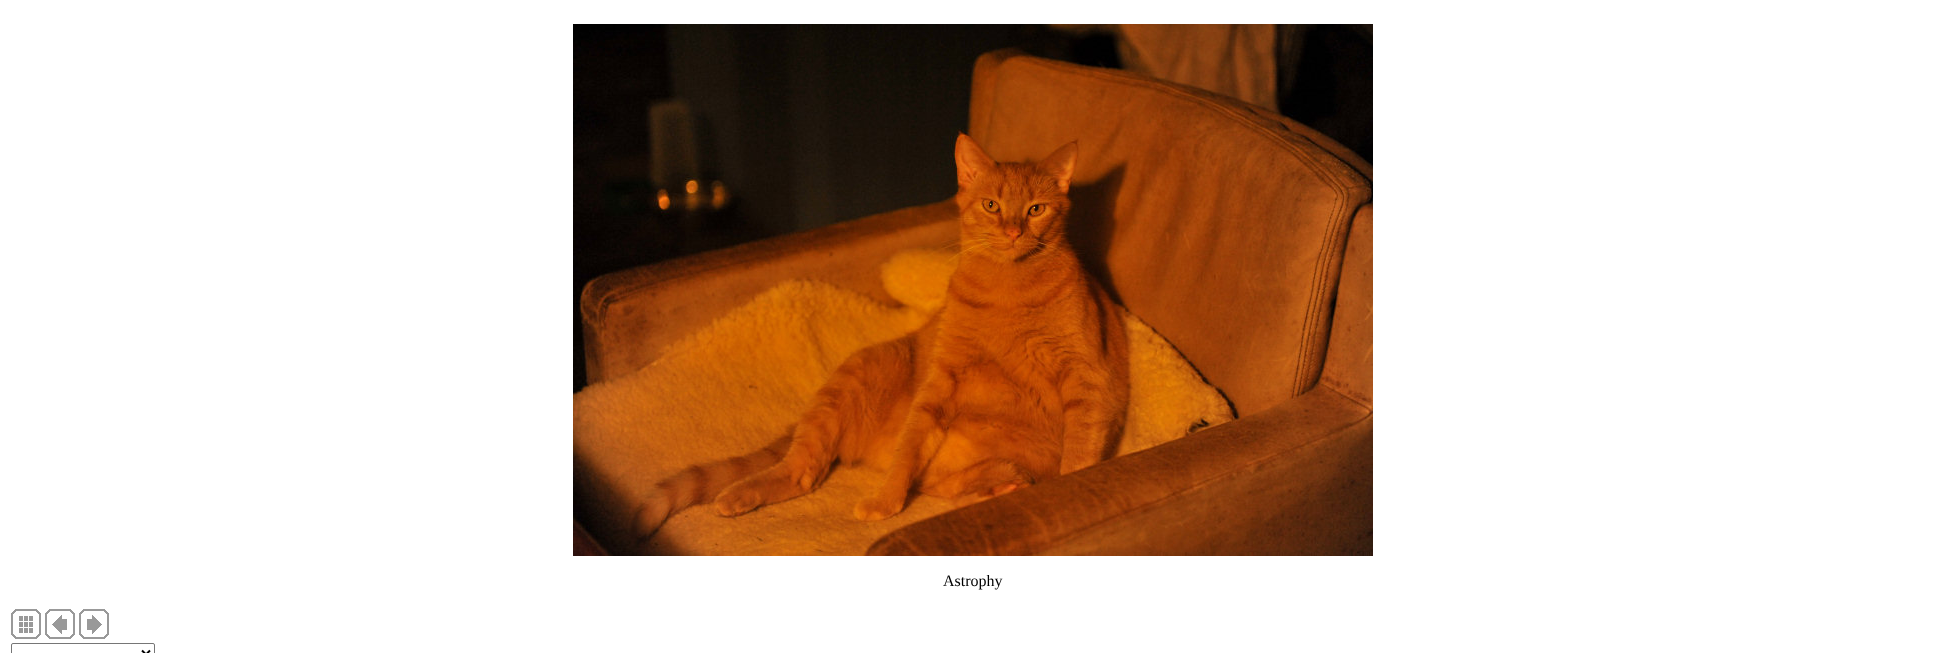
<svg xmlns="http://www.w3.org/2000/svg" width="1945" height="653">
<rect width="100%" height="100%" fill="#fff"/>
<image x="573" y="24" width="800" height="532" href="media/1.png"/>
<text x="943" y="586" style="font-family:Liberation Serif;font-size:16px;fill:#000">Astrophy</text>
<image x="11" y="609" width="30" height="30" href="media/2.png"/>
<image x="45" y="609" width="30" height="30" href="media/3.png"/>
<image x="79" y="609" width="30" height="30" href="media/4.png"/>
<rect x="11.5" y="643.5" width="143" height="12" rx="1.5" fill="none" stroke="#767676"/>
<path d="M142 650.5l4 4l4-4" fill="none" stroke="#000" stroke-width="2"/>
</svg>
